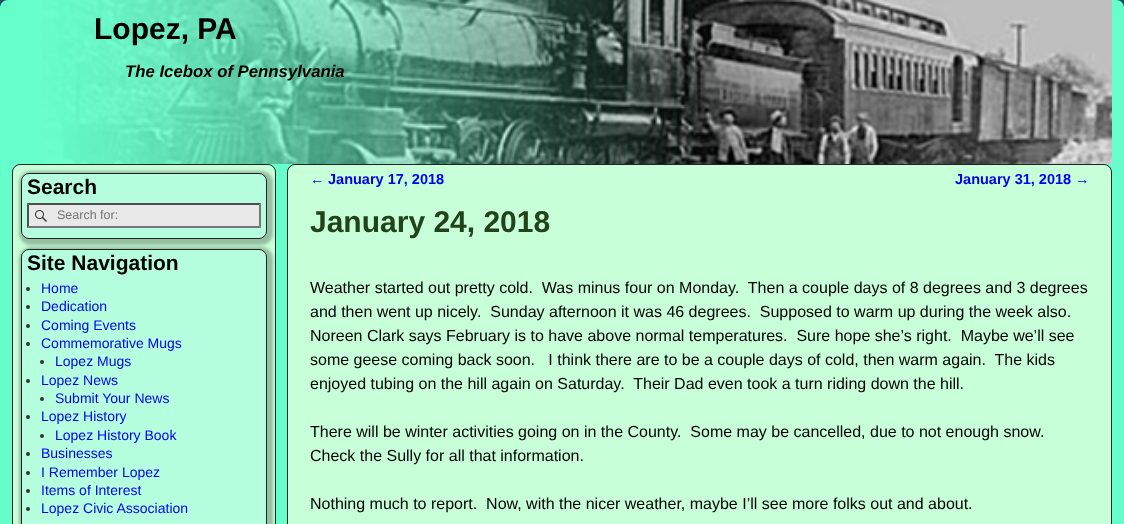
<svg xmlns="http://www.w3.org/2000/svg" width="1124" height="524">
<rect width="100%" height="100%" fill="#4592c4"/>
<image x="0" y="0" width="1124" height="8" href="media/1.png"/>
<rect x="8" y="-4" width="1108" height="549" rx="12" fill="#00000040" filter="blur(3px)"/>
<path d="M8 0h1108c4.5 0 8 3.5 8 8v156h-1124v-156c0-4.5 3.5-8 8-8z" fill="#6fc"/>
<image x="43" y="0" width="1069" height="164" href="media/2.png"/>
<text x="94" y="39" style="font-family:Liberation Sans;font-size:30px;font-weight:bold;fill:#000">Lopez, PA</text>
<text x="125" y="77" style="font-family:Liberation Sans;font-size:16.75px;font-weight:bold;font-style:italic;fill:#000">The Icebox of Pennsylvania</text>
<rect y="164" width="1124" height="360" fill="#6fc"/>
<rect x="12.5" y="164.5" width="263" height="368" rx="7.5" fill="#c7ffd8" stroke="#222"/>
<rect x="19" y="171" width="254" height="74" rx="12" fill="#00000040" filter="blur(1.5px)"/>
<rect x="21.5" y="173.5" width="245" height="65" rx="7.5" fill="#b5ffdf" stroke="#222"/>
<text x="27" y="194" style="font-family:Liberation Sans;font-size:21px;font-weight:bold;fill:#000">Search</text>
<rect x="27" y="203" width="234" height="25" fill="#e8e8e8"/>
<image x="35" y="210" width="12" height="12" href="media/3.png"/>
<path d="M27 203h234l-2 2h-230z" fill="#4f4f4f"/>
<path d="M261 203v25l-2-2v-21z" fill="#767676"/>
<path d="M261 228h-234l2-2h230z" fill="#767676"/>
<path d="M27 228v-25l2 2v21z" fill="#4f4f4f"/>
<text x="57" y="219" style="font-family:Liberation Sans;font-size:12.5px;fill:#757575">Search for:</text>
<rect x="19" y="247" width="254" height="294" rx="12" fill="#00000040" filter="blur(1.5px)"/>
<rect x="21.5" y="249.5" width="245" height="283" rx="7.5" fill="#b5ffdf" stroke="#222"/>
<text x="27" y="270" style="font-family:Liberation Sans;font-size:21px;font-weight:bold;fill:#000">Site Navigation</text>
<circle cx="28" cy="289" r="2" fill="#333"/>
<text x="41" y="293" style="font-family:Liberation Sans;font-size:14px;fill:#00e">Home</text>
<circle cx="28" cy="307" r="2" fill="#333"/>
<text x="41" y="311" style="font-family:Liberation Sans;font-size:14px;fill:#00e">Dedication</text>
<circle cx="28" cy="326" r="2" fill="#333"/>
<text x="41" y="330" style="font-family:Liberation Sans;font-size:14px;fill:#00e">Coming Events</text>
<circle cx="28" cy="344" r="2" fill="#333"/>
<text x="41" y="348" style="font-family:Liberation Sans;font-size:14px;fill:#00e">Commemorative Mugs</text>
<circle cx="42" cy="362" r="2" fill="#333"/>
<text x="55" y="366" style="font-family:Liberation Sans;font-size:14px;fill:#00e">Lopez Mugs</text>
<circle cx="28" cy="381" r="2" fill="#333"/>
<text x="41" y="385" style="font-family:Liberation Sans;font-size:14px;fill:#00e">Lopez News</text>
<circle cx="42" cy="399" r="2" fill="#333"/>
<text x="55" y="403" style="font-family:Liberation Sans;font-size:14px;fill:#00e">Submit Your News</text>
<circle cx="28" cy="417" r="2" fill="#333"/>
<text x="41" y="421" style="font-family:Liberation Sans;font-size:14px;fill:#00e">Lopez History</text>
<circle cx="42" cy="436" r="2" fill="#333"/>
<text x="55" y="440" style="font-family:Liberation Sans;font-size:14px;fill:#00e">Lopez History Book</text>
<circle cx="28" cy="454" r="2" fill="#333"/>
<text x="41" y="458" style="font-family:Liberation Sans;font-size:14px;fill:#00e">Businesses</text>
<circle cx="28" cy="473" r="2" fill="#333"/>
<text x="41" y="477" style="font-family:Liberation Sans;font-size:14px;fill:#00e">I Remember Lopez</text>
<circle cx="28" cy="491" r="2" fill="#333"/>
<text x="41" y="495" style="font-family:Liberation Sans;font-size:14px;fill:#00e">Items of Interest</text>
<circle cx="28" cy="509" r="2" fill="#333"/>
<text x="41" y="513" style="font-family:Liberation Sans;font-size:14px;fill:#00e">Lopez Civic Association</text>
<rect x="287.5" y="164.5" width="824" height="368" rx="7.5" fill="#c7ffd8" stroke="#222"/>
<text x="310" y="184" style="font-family:Liberation Sans;font-size:14.5px;fill:#00e">←</text>
<text x="328" y="184" style="font-family:Liberation Sans;font-size:14.5px;font-weight:bold;fill:#00e">January 17, 2018</text>
<text x="955" y="184" style="font-family:Liberation Sans;font-size:14.5px;font-weight:bold;fill:#00e">January 31, 2018</text>
<text x="1075" y="184" style="font-family:Liberation Sans;font-size:14.5px;fill:#00e">→</text>
<text x="310" y="232" style="font-family:Liberation Sans;font-size:30px;font-weight:bold;fill:#22421a">January 24, 2018</text>
<text x="310" y="293" style="font-family:Liberation Sans;font-size:16px;fill:#000" xml:space="preserve">Weather started out pretty cold.  Was minus four on Monday.  Then a couple days of 8 degrees and 3 degrees</text>
<text x="310" y="317" style="font-family:Liberation Sans;font-size:16px;fill:#000" xml:space="preserve">and then went up nicely.  Sunday afternoon it was 46 degrees.  Supposed to warm up during the week also.</text>
<text x="310" y="341" style="font-family:Liberation Sans;font-size:16px;fill:#000" xml:space="preserve">Noreen Clark says February is to have above normal temperatures.  Sure hope she’s right.  Maybe we’ll see</text>
<text x="310" y="365" style="font-family:Liberation Sans;font-size:16px;fill:#000" xml:space="preserve">some geese coming back soon.   I think there are to be a couple days of cold, then warm again.  The kids</text>
<text x="310" y="389" style="font-family:Liberation Sans;font-size:16px;fill:#000" xml:space="preserve">enjoyed tubing on the hill again on Saturday.  Their Dad even took a turn riding down the hill.</text>
<text x="310" y="437" style="font-family:Liberation Sans;font-size:16px;fill:#000" xml:space="preserve">There will be winter activities going on in the County.  Some may be cancelled, due to not enough snow.</text>
<text x="310" y="461" style="font-family:Liberation Sans;font-size:16px;fill:#000">Check the Sully for all that information.</text>
<text x="310" y="509" style="font-family:Liberation Sans;font-size:16px;fill:#000" xml:space="preserve">Nothing much to report.  Now, with the nicer weather, maybe I’ll see more folks out and about.</text>
</svg>
